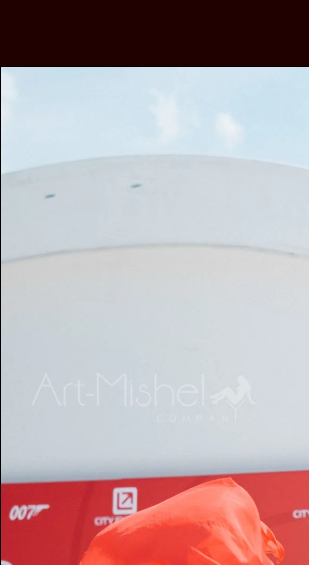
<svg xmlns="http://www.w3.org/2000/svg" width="309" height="565">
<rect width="100%" height="100%" fill="#fff"/>
<image x="0" y="0" width="309" height="66" href="media/1.png"/>
<rect x="0.5" y="66.5" width="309" height="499" fill="none" stroke="#000"/>
<image x="1" y="67" width="308" height="498" href="media/2.png"/>
</svg>
